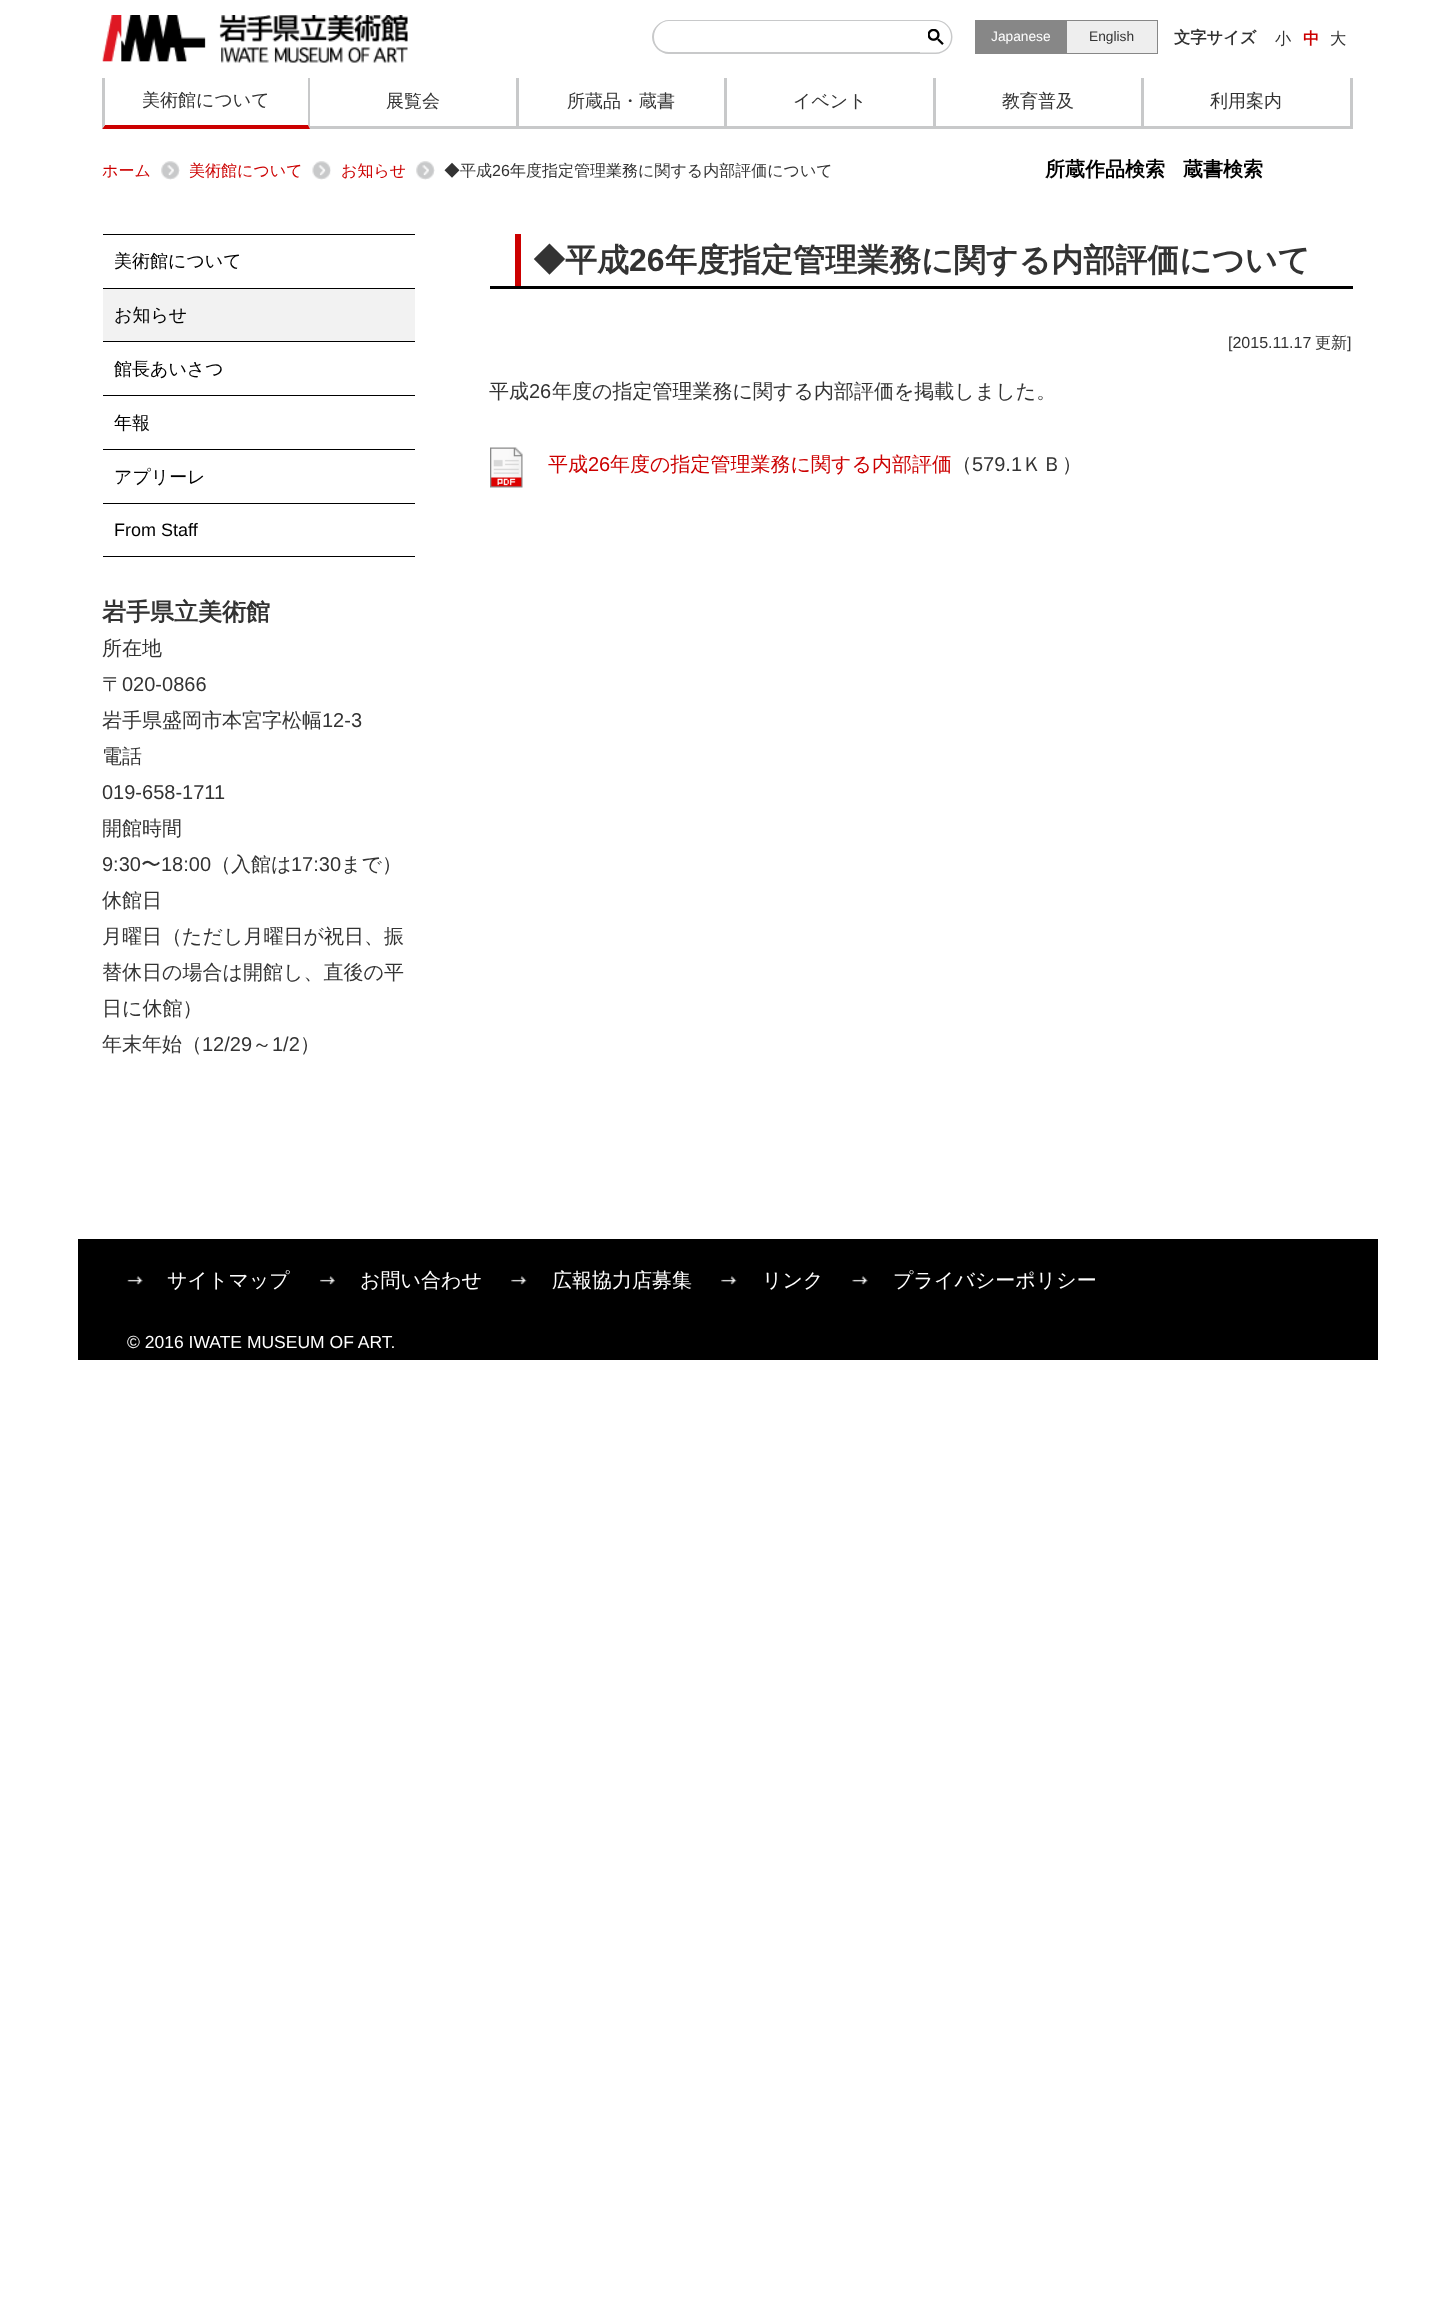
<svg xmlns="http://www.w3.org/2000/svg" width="1453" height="2304">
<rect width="100%" height="100%" fill="#fff"/>
<image x="102" y="15" width="306" height="48" href="media/1.png"/>
<path d="M669 20h251v34h-251c-9 0-17-8-17-17c0-9 8-17 17-17zm0 1h251v31h-251c-8 0-15-6-15-15c0-9 7-16 15-16z" fill="#c8c9ca" fill-rule="evenodd"/>
<path d="M920 20h15.5c9.5 0 17 7.5 17 17c0 9-7.5 17-17 17h-15.5zm0 1h15.5c9 0 15.5 7 15.5 16c0 8.5-6.5 15.5-15.5 15.5h-15.5z" fill="#c8c9ca" fill-rule="evenodd"/>
<image x="928" y="29" width="16" height="16" href="media/2.png"/>
<rect x="1067" y="21" width="90" height="32" fill="#eee"/>
<rect x="975.5" y="20.5" width="182" height="33" fill="none" stroke="#878787"/>
<rect x="976" y="21" width="91" height="32" fill="#878787"/>
<text x="991" y="41" style="font-family:Liberation Sans;font-size:13.75px;fill:#fff">Japanese</text>
<text x="1089" y="41" style="font-family:Liberation Sans;font-size:13.75px;fill:#333">English</text>
<text x="1174" y="43" style="font-family:WenQuanYi Zen Hei;font-size:16.25px;font-weight:bold;fill:#333">文字サイズ</text>
<text x="1275" y="44" style="font-family:WenQuanYi Zen Hei;font-size:16.25px;font-weight:500;fill:#333">小</text>
<text x="1303" y="44" style="font-family:WenQuanYi Zen Hei;font-size:16.25px;font-weight:bold;fill:#c00">中</text>
<text x="1330" y="44" style="font-family:WenQuanYi Zen Hei;font-size:16.25px;font-weight:500;fill:#333">大</text>
<path d="M310 78v51l-2-4v-47z" fill="#c8c9ca"/>
<path d="M310 129h-208l3-4h203z" fill="#c00"/>
<path d="M102 129v-51h3v47z" fill="#c8c9ca"/>
<text x="142" y="106" style="font-family:WenQuanYi Zen Hei;font-size:18px;font-weight:500;fill:#333">美術館について</text>
<rect x="516" y="78" width="3" height="51" fill="#c8c9ca"/>
<rect x="310" y="126" width="209" height="3" fill="#c8c9ca"/>
<text x="386" y="107" style="font-family:WenQuanYi Zen Hei;font-size:18px;font-weight:500;fill:#333">展覧会</text>
<rect x="1141" y="78" width="3" height="51" fill="#c8c9ca"/>
<rect x="935" y="126" width="209" height="3" fill="#c8c9ca"/>
<rect x="933" y="78" width="3" height="51" fill="#c8c9ca"/>
<rect x="726" y="126" width="209" height="3" fill="#c8c9ca"/>
<rect x="724" y="78" width="3" height="51" fill="#c8c9ca"/>
<rect x="519" y="126" width="207" height="3" fill="#c8c9ca"/>
<text x="567" y="107" style="font-family:WenQuanYi Zen Hei;font-size:18px;font-weight:500;fill:#333">所蔵品・蔵書</text>
<text x="793" y="107" style="font-family:WenQuanYi Zen Hei;font-size:18px;font-weight:500;fill:#333">イベント</text>
<text x="1002" y="107" style="font-family:WenQuanYi Zen Hei;font-size:18px;font-weight:500;fill:#333">教育普及</text>
<rect x="1350" y="78" width="3" height="51" fill="#c8c9ca"/>
<rect x="1144" y="126" width="209" height="3" fill="#c8c9ca"/>
<text x="1210" y="107" style="font-family:WenQuanYi Zen Hei;font-size:18px;font-weight:500;fill:#333">利用案内</text>
<text x="102" y="176" style="font-family:WenQuanYi Zen Hei;font-size:16px;font-weight:500;fill:#c00">ホーム</text>
<image x="161" y="161" width="19" height="19" href="media/3.png"/>
<text x="189" y="176" style="font-family:WenQuanYi Zen Hei;font-size:16px;font-weight:500;fill:#c00">美術館について</text>
<image x="312" y="161" width="19" height="19" href="media/4.png"/>
<text x="341" y="176" style="font-family:WenQuanYi Zen Hei;font-size:16px;font-weight:500;fill:#c00">お知らせ</text>
<image x="416" y="161" width="19" height="19" href="media/3.png"/>
<text x="444" y="176" style="font-family:WenQuanYi Zen Hei;font-size:16px;font-weight:500;fill:#333">◆平成</text>
<text x="492" y="176" style="font-family:Liberation Sans;font-size:16px;fill:#333">26</text>
<text x="510" y="176" style="font-family:WenQuanYi Zen Hei;font-size:16px;font-weight:500;fill:#333">年度指定管理業務に関する内部評価について</text>
<text x="1045" y="176" style="font-family:WenQuanYi Zen Hei;font-size:20px;font-weight:bold;fill:#000">所蔵作品検索</text>
<text x="1183" y="176" style="font-family:WenQuanYi Zen Hei;font-size:20px;font-weight:bold;fill:#000">蔵書検索</text>
<rect x="103" y="234" width="312" height="1" fill="#000"/>
<rect x="103" y="288" width="312" height="1" fill="#000"/>
<text x="114" y="267" style="font-family:WenQuanYi Zen Hei;font-size:18px;font-weight:500;fill:#000">美術館について</text>
<rect x="103" y="341" width="312" height="1" fill="#000"/>
<rect x="103" y="289" width="312" height="52" fill="#f2f2f2"/>
<text x="114" y="321" style="font-family:WenQuanYi Zen Hei;font-size:18px;font-weight:500;fill:#000">お知らせ</text>
<rect x="103" y="395" width="312" height="1" fill="#000"/>
<text x="114" y="375" style="font-family:WenQuanYi Zen Hei;font-size:18px;font-weight:500;fill:#000">館長あいさつ</text>
<rect x="103" y="449" width="312" height="1" fill="#000"/>
<text x="114" y="429" style="font-family:WenQuanYi Zen Hei;font-size:18px;font-weight:500;fill:#000">年報</text>
<rect x="103" y="503" width="312" height="1" fill="#000"/>
<text x="114" y="483" style="font-family:WenQuanYi Zen Hei;font-size:18px;font-weight:500;fill:#000">アプリーレ</text>
<rect x="103" y="556" width="312" height="1" fill="#000"/>
<text x="114" y="536" style="font-family:Liberation Sans;font-size:18px;fill:#000">From Staff</text>
<text x="102" y="620" style="font-family:WenQuanYi Zen Hei;font-size:24px;font-weight:bold;fill:#333">岩手県立美術館</text>
<text x="102" y="655" style="font-family:WenQuanYi Zen Hei;font-size:20px;font-weight:500;fill:#333">所在地</text>
<text x="102" y="691" style="font-family:WenQuanYi Zen Hei;font-size:20px;font-weight:500;fill:#333">〒</text>
<text x="122" y="691" style="font-family:Liberation Sans;font-size:20px;fill:#333">020-0866</text>
<text x="102" y="727" style="font-family:WenQuanYi Zen Hei;font-size:20px;font-weight:500;fill:#333">岩手県盛岡市本宮字松幅</text>
<text x="322" y="727" style="font-family:Liberation Sans;font-size:20px;fill:#333">12-3</text>
<text x="102" y="763" style="font-family:WenQuanYi Zen Hei;font-size:20px;font-weight:500;fill:#333">電話</text>
<text x="102" y="799" style="font-family:Liberation Sans;font-size:20px;fill:#333">019-658-1711</text>
<text x="102" y="835" style="font-family:WenQuanYi Zen Hei;font-size:20px;font-weight:500;fill:#333">開館時間</text>
<text x="102" y="871" style="font-family:Liberation Sans;font-size:20px;fill:#333">9:30</text>
<text x="141" y="871" style="font-family:WenQuanYi Zen Hei;font-size:20px;font-weight:500;fill:#333">〜</text>
<text x="161" y="871" style="font-family:Liberation Sans;font-size:20px;fill:#333">18:00</text>
<text x="211" y="871" style="font-family:WenQuanYi Zen Hei;font-size:20px;font-weight:500;fill:#333">（入館は</text>
<text x="291" y="871" style="font-family:Liberation Sans;font-size:20px;fill:#333">17:30</text>
<text x="341" y="871" style="font-family:WenQuanYi Zen Hei;font-size:20px;font-weight:500;fill:#333">まで）</text>
<text x="102" y="907" style="font-family:WenQuanYi Zen Hei;font-size:20px;font-weight:500;fill:#333">休館日</text>
<text x="102" y="943" style="font-family:WenQuanYi Zen Hei;font-size:20px;font-weight:500;fill:#333">月曜日（ただし月曜日が祝日、振</text>
<text x="102" y="979" style="font-family:WenQuanYi Zen Hei;font-size:20px;font-weight:500;fill:#333">替休日の場合は開館し、直後の平</text>
<text x="102" y="1015" style="font-family:WenQuanYi Zen Hei;font-size:20px;font-weight:500;fill:#333">日に休館）</text>
<text x="102" y="1051" style="font-family:WenQuanYi Zen Hei;font-size:20px;font-weight:500;fill:#333">年末年始（</text>
<text x="202" y="1051" style="font-family:Liberation Sans;font-size:20px;fill:#333">12/29</text>
<text x="252" y="1051" style="font-family:WenQuanYi Zen Hei;font-size:20px;font-weight:500;fill:#333">～</text>
<text x="272" y="1051" style="font-family:Liberation Sans;font-size:20px;fill:#333">1/2</text>
<text x="300" y="1051" style="font-family:WenQuanYi Zen Hei;font-size:20px;font-weight:500;fill:#333">）</text>
<rect x="490" y="286" width="863" height="3" fill="#000"/>
<rect x="515" y="234" width="6" height="52" fill="#c00"/>
<text x="533" y="271" style="font-family:WenQuanYi Zen Hei;font-size:32px;font-weight:bold;fill:#333">◆平成</text>
<text x="629" y="271" style="font-family:Liberation Sans;font-size:32px;font-weight:bold;fill:#333">26</text>
<text x="665" y="271" style="font-family:WenQuanYi Zen Hei;font-size:32px;font-weight:bold;fill:#333">年度指定管理業務に関する内部評価について</text>
<text x="1228" y="348" style="font-family:Liberation Sans;font-size:16px;fill:#333">[2015.11.17</text>
<text x="1315" y="348" style="font-family:WenQuanYi Zen Hei;font-size:16px;font-weight:500;fill:#333">更新</text>
<text x="1347" y="348" style="font-family:Liberation Sans;font-size:16px;fill:#333">]</text>
<text x="489" y="398" style="font-family:WenQuanYi Zen Hei;font-size:20px;font-weight:500;fill:#333">平成</text>
<text x="529" y="398" style="font-family:Liberation Sans;font-size:20px;fill:#333">26</text>
<text x="552" y="398" style="font-family:WenQuanYi Zen Hei;font-size:20px;font-weight:500;fill:#333">年度の指定管理業務に関する内部評価を掲載しました。</text>
<image x="490" y="447" width="33" height="41" href="media/5.png"/>
<text x="548" y="471" style="font-family:WenQuanYi Zen Hei;font-size:20px;font-weight:500;fill:#c00">平成</text>
<text x="588" y="471" style="font-family:Liberation Sans;font-size:20px;fill:#c00">26</text>
<text x="610" y="471" style="font-family:WenQuanYi Zen Hei;font-size:20px;font-weight:500;fill:#c00">年度の指定管理業務に関する内部評価</text>
<text x="952" y="471" style="font-family:WenQuanYi Zen Hei;font-size:20px;font-weight:500;fill:#333">（</text>
<text x="972" y="471" style="font-family:Liberation Sans;font-size:20px;fill:#333">579.1</text>
<text x="1022" y="471" style="font-family:WenQuanYi Zen Hei;font-size:20px;font-weight:500;fill:#333">ＫＢ）</text>
<rect x="78" y="1239" width="1300" height="121" fill="#000"/>
<image x="127" y="1276" width="16" height="9" href="media/6.png"/>
<text x="167" y="1287" style="font-family:WenQuanYi Zen Hei;font-size:20px;font-weight:500;fill:#fff">サイトマップ</text>
<image x="320" y="1276" width="15" height="9" href="media/7.png"/>
<text x="360" y="1287" style="font-family:WenQuanYi Zen Hei;font-size:20px;font-weight:500;fill:#fff">お問い合わせ</text>
<image x="511" y="1276" width="16" height="9" href="media/8.png"/>
<text x="552" y="1287" style="font-family:WenQuanYi Zen Hei;font-size:20px;font-weight:500;fill:#fff">広報協力店募集</text>
<image x="721" y="1276" width="16" height="9" href="media/8.png"/>
<text x="762" y="1287" style="font-family:WenQuanYi Zen Hei;font-size:20px;font-weight:500;fill:#fff">リンク</text>
<image x="852" y="1276" width="16" height="9" href="media/9.png"/>
<text x="893" y="1287" style="font-family:WenQuanYi Zen Hei;font-size:20px;font-weight:500;fill:#fff">プライバシーポリシー</text>
<text x="127" y="1348" style="font-family:Liberation Sans;font-size:17.5px;fill:#fff">© 2016 IWATE MUSEUM OF ART.</text>
</svg>
